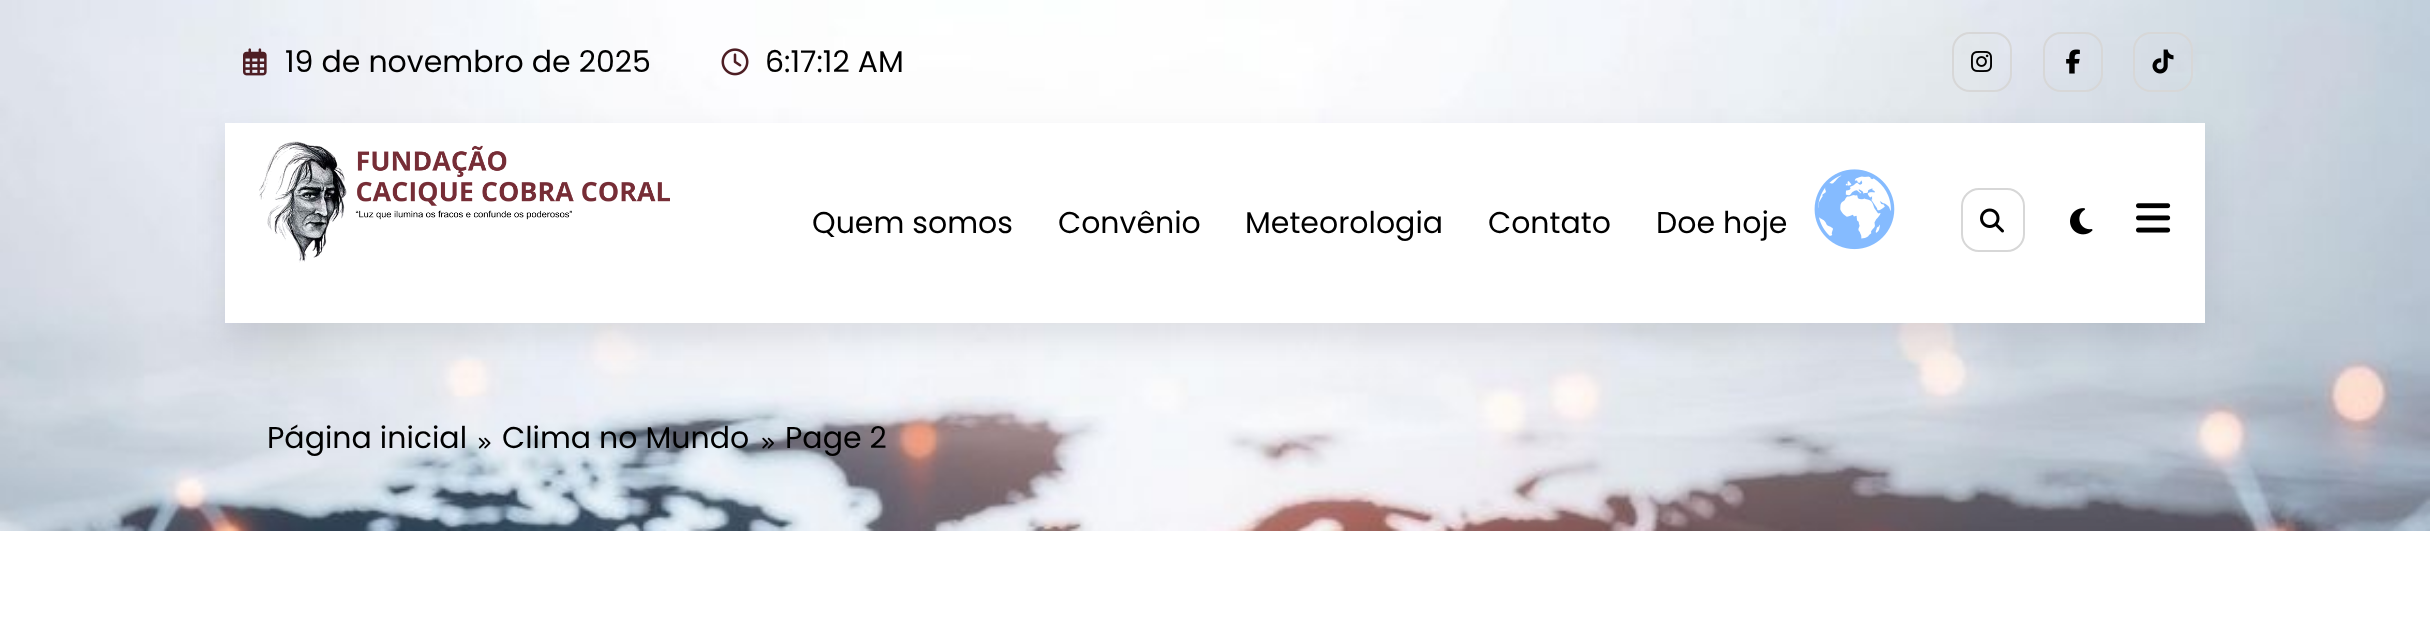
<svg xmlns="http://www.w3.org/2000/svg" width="2430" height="619">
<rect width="100%" height="100%" fill="#fff"/>
<image x="0" y="0" width="2430" height="531" href="media/11.png"/>
<image x="243" y="48" width="24" height="28" href="media/1.png"/>
<text x="285" y="72" style="font-family:Poppins;font-size:30px;fill:#000">19 de novembro de 2025</text>
<image x="721" y="48" width="28" height="28" href="media/2.png"/>
<text x="765" y="72" style="font-family:Poppins;font-size:30px;fill:#000">6:17:12 AM</text>
<rect x="1953" y="33" width="58" height="58" rx="17" fill="none" stroke="#d7d7d7" stroke-width="2"/>
<image x="1971" y="51" width="21" height="21" href="media/3.png"/>
<rect x="2044" y="33" width="58" height="58" rx="17" fill="none" stroke="#d7d7d7" stroke-width="2"/>
<image x="2066" y="49" width="14" height="25" href="media/4.png"/>
<rect x="2134" y="33" width="58" height="58" rx="17" fill="none" stroke="#d7d7d7" stroke-width="2"/>
<image x="2152" y="49" width="22" height="25" href="media/5.png"/>
<rect x="225" y="138" width="1980" height="200" fill="#1412231a" filter="blur(15px)"/>
<rect x="225" y="123" width="1980" height="200" fill="#fff"/>
<image x="259" y="141" width="411" height="122" href="media/6.png"/>
<text x="812" y="233" style="font-family:Poppins;font-size:30px;fill:#000">Quem somos</text>
<text x="1058" y="233" style="font-family:Poppins;font-size:30px;fill:#000">Convênio</text>
<text x="1245" y="233" style="font-family:Poppins;font-size:30px;fill:#000">Meteorologia</text>
<text x="1488" y="233" style="font-family:Poppins;font-size:30px;fill:#000">Contato</text>
<text x="1656" y="233" style="font-family:Poppins;font-size:30px;fill:#000">Doe hoje</text>
<image x="1814" y="169" width="81" height="81" href="media/7.png"/>
<rect x="1962" y="189" width="62" height="62" rx="17" fill="none" stroke="#d7d7d7" stroke-width="2"/>
<image x="1980" y="208" width="24" height="25" href="media/8.png"/>
<image x="2070" y="208" width="23" height="27" href="media/9.png"/>
<image x="2136" y="203" width="35" height="30" href="media/10.png"/>
<text x="267" y="448" style="font-family:Poppins;font-size:30px;fill:#000">Página inicial</text>
<image x="478" y="437" width="13" height="12" href="media/12.png"/>
<text x="502" y="448" style="font-family:Poppins;font-size:30px;fill:#000">Clima no Mundo</text>
<image x="762" y="437" width="12" height="12" href="media/13.png"/>
<text x="785" y="448" style="font-family:Poppins;font-size:30px;fill:#000">Page 2</text>
</svg>
